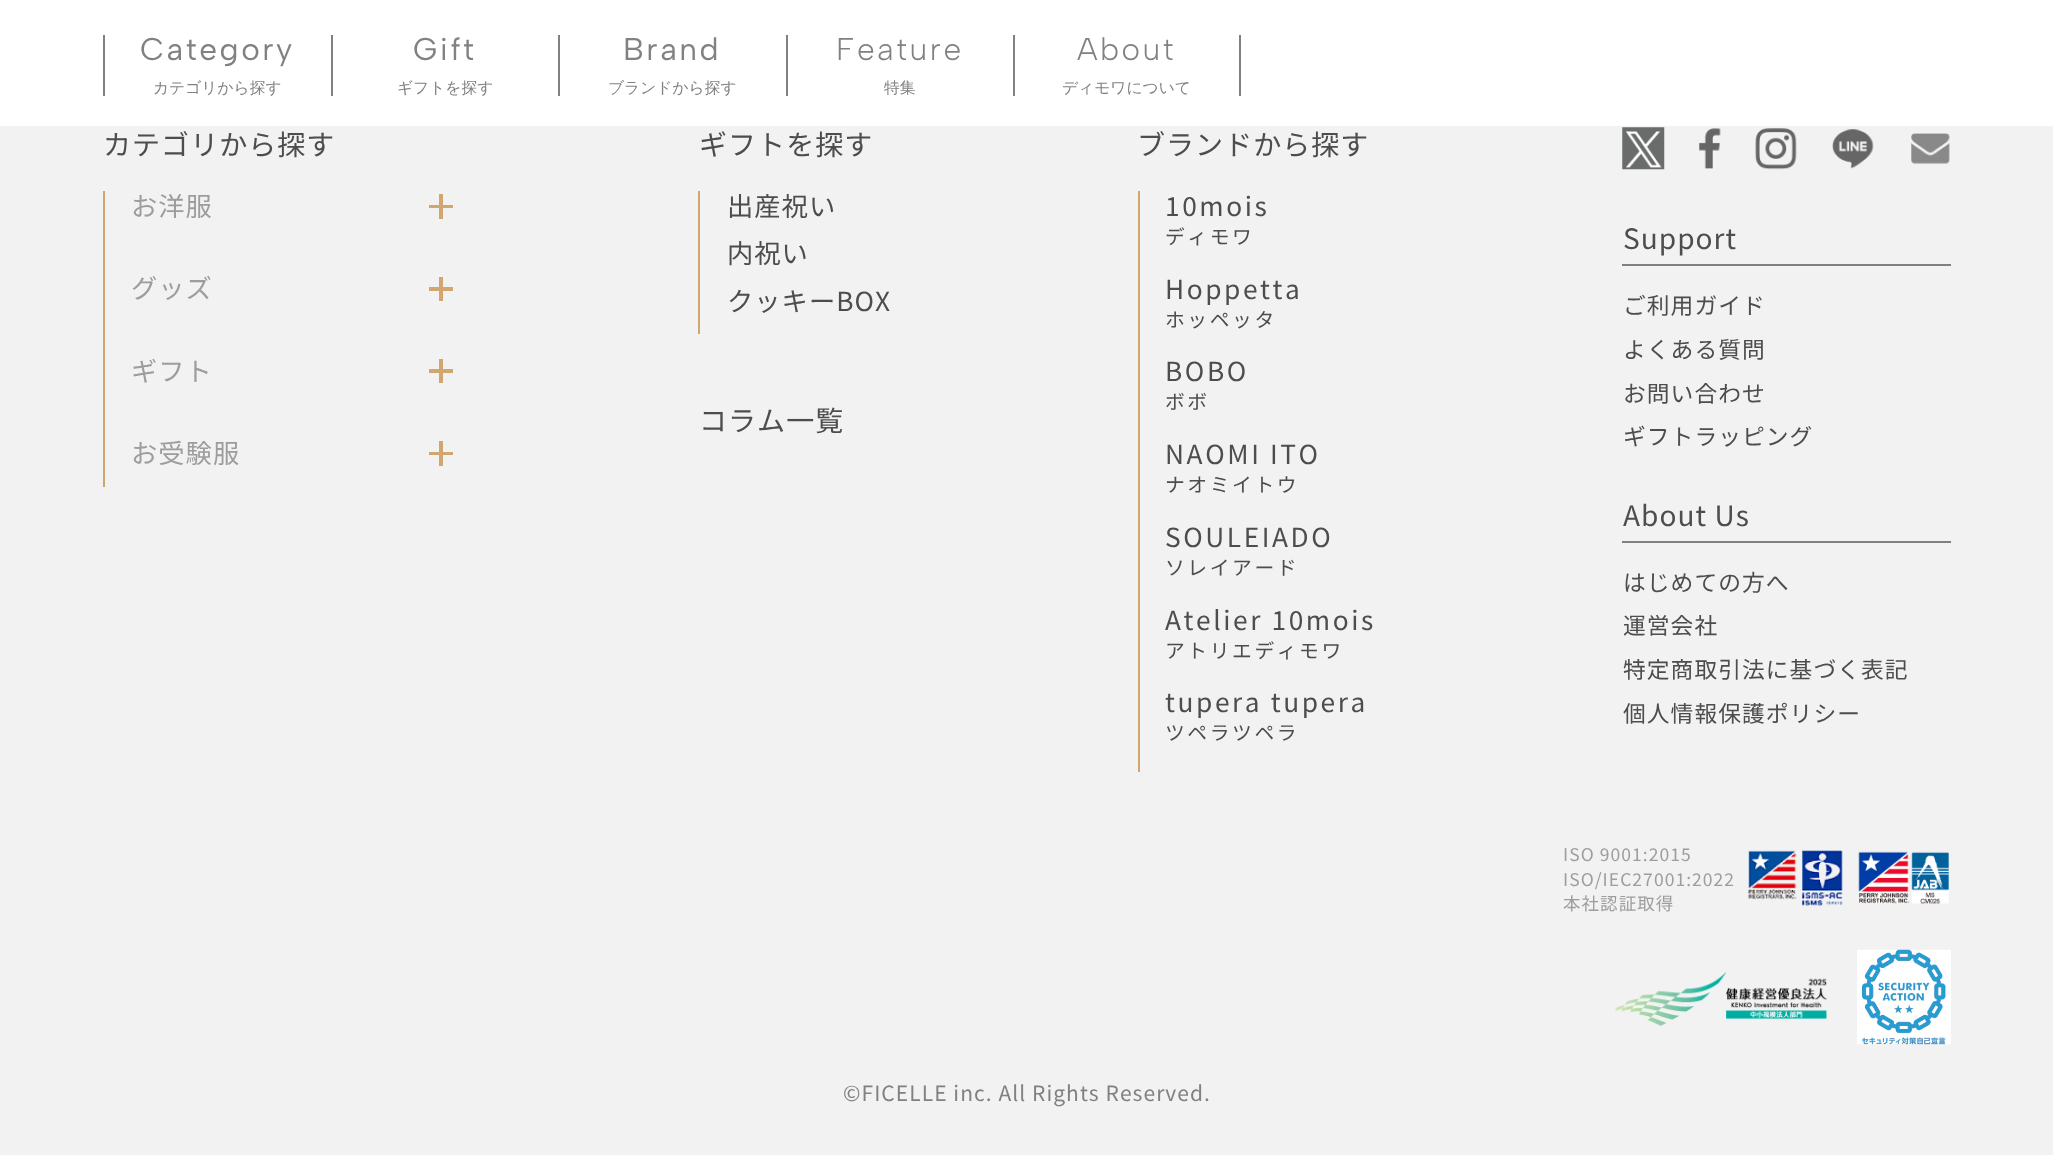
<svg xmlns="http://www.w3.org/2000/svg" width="2053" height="1155">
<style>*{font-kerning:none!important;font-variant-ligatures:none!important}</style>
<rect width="100%" height="100%" fill="#f2f2f2"/>
<rect width="2053" height="126" fill="#fff"/>
<rect x="103" y="35" width="2" height="61" fill="#818181"/>
<text x="140" y="60" style="font-family:Albert Sans;font-size:31.5px;letter-spacing:2.5px;fill:#818181">Category</text>
<text x="153" y="93" style="font-family:WenQuanYi Zen Hei;font-size:15.75px;font-weight:500;fill:#818181">カテゴリから探す</text>
<rect x="331" y="35" width="2" height="61" fill="#818181"/>
<text x="413" y="60" style="font-family:Albert Sans;font-size:31.5px;letter-spacing:2.5px;fill:#818181">Gift</text>
<text x="397" y="93" style="font-family:WenQuanYi Zen Hei;font-size:15.75px;font-weight:500;fill:#818181">ギフトを探す</text>
<rect x="558" y="35" width="2" height="61" fill="#818181"/>
<text x="623" y="60" style="font-family:Albert Sans;font-size:31.5px;letter-spacing:2.5px;fill:#818181">Brand</text>
<text x="608" y="93" style="font-family:WenQuanYi Zen Hei;font-size:15.75px;font-weight:500;fill:#818181">ブランドから探す</text>
<rect x="786" y="35" width="2" height="61" fill="#818181"/>
<text x="836" y="60" style="font-family:Albert Sans;font-size:31.5px;font-weight:300;letter-spacing:2.5px;fill:#818181">Feature</text>
<text x="884" y="93" style="font-family:WenQuanYi Zen Hei;font-size:15.75px;font-weight:500;fill:#818181">特集</text>
<rect x="1239" y="35" width="2" height="61" fill="#818181"/>
<rect x="1013" y="35" width="2" height="61" fill="#818181"/>
<text x="1077" y="60" style="font-family:Albert Sans;font-size:31.5px;font-weight:300;letter-spacing:2.5px;fill:#818181">About</text>
<text x="1062" y="93" style="font-family:WenQuanYi Zen Hei;font-size:15.75px;font-weight:500;fill:#818181">ディモワについて</text>
<text x="103" y="155" style="font-family:Noto Sans JP;font-size:28px;letter-spacing:1.05px;fill:#4d4d4d">カテゴリから探す</text>
<rect x="103" y="191" width="2" height="296" fill="#d2a76f"/>
<text x="131" y="216" style="font-family:Noto Sans JP;font-size:26.25px;letter-spacing:1.05px;fill:#9d9d9d">お洋服</text>
<rect x="429" y="205" width="24" height="3" fill="#d2a76f"/>
<rect x="439" y="194" width="4" height="25" fill="#d2a76f"/>
<text x="131" y="298" style="font-family:Noto Sans JP;font-size:26.25px;letter-spacing:1.05px;fill:#9d9d9d">グッズ</text>
<rect x="429" y="287" width="24" height="4" fill="#d2a76f"/>
<rect x="439" y="277" width="4" height="24" fill="#d2a76f"/>
<text x="131" y="381" style="font-family:Noto Sans JP;font-size:26.25px;letter-spacing:1.05px;fill:#9d9d9d">ギフト</text>
<rect x="429" y="369" width="24" height="4" fill="#d2a76f"/>
<rect x="439" y="359" width="4" height="24" fill="#d2a76f"/>
<text x="131" y="463" style="font-family:Noto Sans JP;font-size:26.25px;letter-spacing:1.05px;fill:#9d9d9d">お受験服</text>
<rect x="429" y="452" width="24" height="3" fill="#d2a76f"/>
<rect x="439" y="441" width="4" height="25" fill="#d2a76f"/>
<text x="699" y="155" style="font-family:Noto Sans JP;font-size:28px;letter-spacing:1.05px;fill:#4d4d4d">ギフトを探す</text>
<rect x="698" y="191" width="2" height="143" fill="#d2a76f"/>
<text x="727" y="216" style="font-family:Noto Sans JP;font-size:26.25px;letter-spacing:1.05px;fill:#4d4d4d">出産祝い</text>
<text x="727" y="263" style="font-family:Noto Sans JP;font-size:26.25px;letter-spacing:1.05px;fill:#4d4d4d">内祝い</text>
<text x="727" y="311" style="font-family:Noto Sans JP;font-size:26.25px;letter-spacing:1.05px;fill:#4d4d4d">クッキーBOX</text>
<text x="699" y="431" style="font-family:Noto Sans JP;font-size:28px;letter-spacing:1.05px;fill:#4d4d4d">コラム一覧</text>
<text x="1137" y="155" style="font-family:Noto Sans JP;font-size:28px;letter-spacing:1.05px;fill:#4d4d4d">ブランドから探す</text>
<rect x="1138" y="191" width="2" height="581" fill="#d2a76f"/>
<text x="1165" y="216" style="font-family:Noto Sans JP;font-size:26.25px;letter-spacing:2.6px;fill:#4d4d4d">10mois</text>
<text x="1165" y="244" style="font-family:Noto Sans JP;font-size:19.75px;letter-spacing:2.6px;fill:#4d4d4d">ディモワ</text>
<text x="1165" y="299" style="font-family:Noto Sans JP;font-size:26.25px;letter-spacing:2.6px;fill:#4d4d4d">Hoppetta</text>
<text x="1165" y="327" style="font-family:Noto Sans JP;font-size:19.75px;letter-spacing:2.6px;fill:#4d4d4d">ホッペッタ</text>
<text x="1165" y="381" style="font-family:Noto Sans JP;font-size:26.25px;letter-spacing:2.6px;fill:#4d4d4d">BOBO</text>
<text x="1165" y="409" style="font-family:Noto Sans JP;font-size:19.75px;letter-spacing:2.6px;fill:#4d4d4d">ボボ</text>
<text x="1165" y="464" style="font-family:Noto Sans JP;font-size:26.25px;letter-spacing:2.6px;fill:#4d4d4d">NAOMI ITO</text>
<text x="1165" y="492" style="font-family:Noto Sans JP;font-size:19.75px;letter-spacing:2.6px;fill:#4d4d4d">ナオミイトウ</text>
<text x="1165" y="547" style="font-family:Noto Sans JP;font-size:26.25px;letter-spacing:2.6px;fill:#4d4d4d">SOULEIADO</text>
<text x="1165" y="575" style="font-family:Noto Sans JP;font-size:19.75px;letter-spacing:2.6px;fill:#4d4d4d">ソレイアード</text>
<text x="1165" y="630" style="font-family:Noto Sans JP;font-size:26.25px;letter-spacing:2.6px;fill:#4d4d4d">Atelier 10mois</text>
<text x="1165" y="658" style="font-family:Noto Sans JP;font-size:19.75px;letter-spacing:2.6px;fill:#4d4d4d">アトリエディモワ</text>
<text x="1165" y="712" style="font-family:Noto Sans JP;font-size:26.25px;letter-spacing:2.6px;fill:#4d4d4d">tupera tupera</text>
<text x="1165" y="740" style="font-family:Noto Sans JP;font-size:19.75px;letter-spacing:2.6px;fill:#4d4d4d">ツペラツペラ</text>
<image x="1622" y="127" width="43" height="43" href="media/1.png"/>
<image x="1699" y="128" width="22" height="41" href="media/2.png"/>
<image x="1755" y="128" width="42" height="42" href="media/3.png"/>
<image x="1832" y="129" width="42" height="40" href="media/4.png"/>
<image x="1911" y="133" width="39" height="31" href="media/5.png"/>
<rect x="1622" y="264" width="329" height="2" fill="#808080"/>
<text x="1623" y="249" style="font-family:Noto Sans JP;font-size:28px;letter-spacing:1.05px;fill:#4d4d4d">Support</text>
<text x="1623" y="314" style="font-family:Noto Sans JP;font-size:22.75px;letter-spacing:1.05px;fill:#4d4d4d">ご利用ガイド</text>
<text x="1623" y="358" style="font-family:Noto Sans JP;font-size:22.75px;letter-spacing:1.05px;fill:#4d4d4d">よくある質問</text>
<text x="1623" y="402" style="font-family:Noto Sans JP;font-size:22.75px;letter-spacing:1.05px;fill:#4d4d4d">お問い合わせ</text>
<text x="1623" y="445" style="font-family:Noto Sans JP;font-size:22.75px;letter-spacing:1.05px;fill:#4d4d4d">ギフトラッピング</text>
<rect x="1622" y="541" width="329" height="2" fill="#808080"/>
<text x="1623" y="526" style="font-family:Noto Sans JP;font-size:28px;letter-spacing:1.05px;fill:#4d4d4d">About Us</text>
<text x="1623" y="591" style="font-family:Noto Sans JP;font-size:22.75px;letter-spacing:1.05px;fill:#4d4d4d">はじめての方へ</text>
<text x="1623" y="634" style="font-family:Noto Sans JP;font-size:22.75px;letter-spacing:1.05px;fill:#4d4d4d">運営会社</text>
<text x="1623" y="678" style="font-family:Noto Sans JP;font-size:22.75px;letter-spacing:1.05px;fill:#4d4d4d">特定商取引法に基づく表記</text>
<text x="1623" y="722" style="font-family:Noto Sans JP;font-size:22.75px;letter-spacing:1.05px;fill:#4d4d4d">個人情報保護ポリシー</text>
<text x="1563" y="861" style="font-family:Noto Sans JP;font-size:17.5px;letter-spacing:1.05px;fill:#9d9d9d">ISO 9001:2015</text>
<text x="1563" y="886" style="font-family:Noto Sans JP;font-size:17.5px;letter-spacing:1.05px;fill:#9d9d9d">ISO/IEC27001:2022</text>
<text x="1563" y="910" style="font-family:Noto Sans JP;font-size:17.5px;letter-spacing:1.05px;fill:#9d9d9d">本社認証取得</text>
<image x="1748" y="850" width="95" height="56" href="media/6.png"/>
<image x="1858" y="851" width="91" height="53" href="media/7.png"/>
<image x="1614" y="971" width="214" height="55" href="media/8.png"/>
<image x="1857" y="949" width="94" height="96" href="media/9.png"/>
<text x="843" y="1101" style="font-family:Noto Sans JP;font-size:21px;letter-spacing:1.05px;fill:#818181">©FICELLE inc. All Rights Reserved.</text>
</svg>
